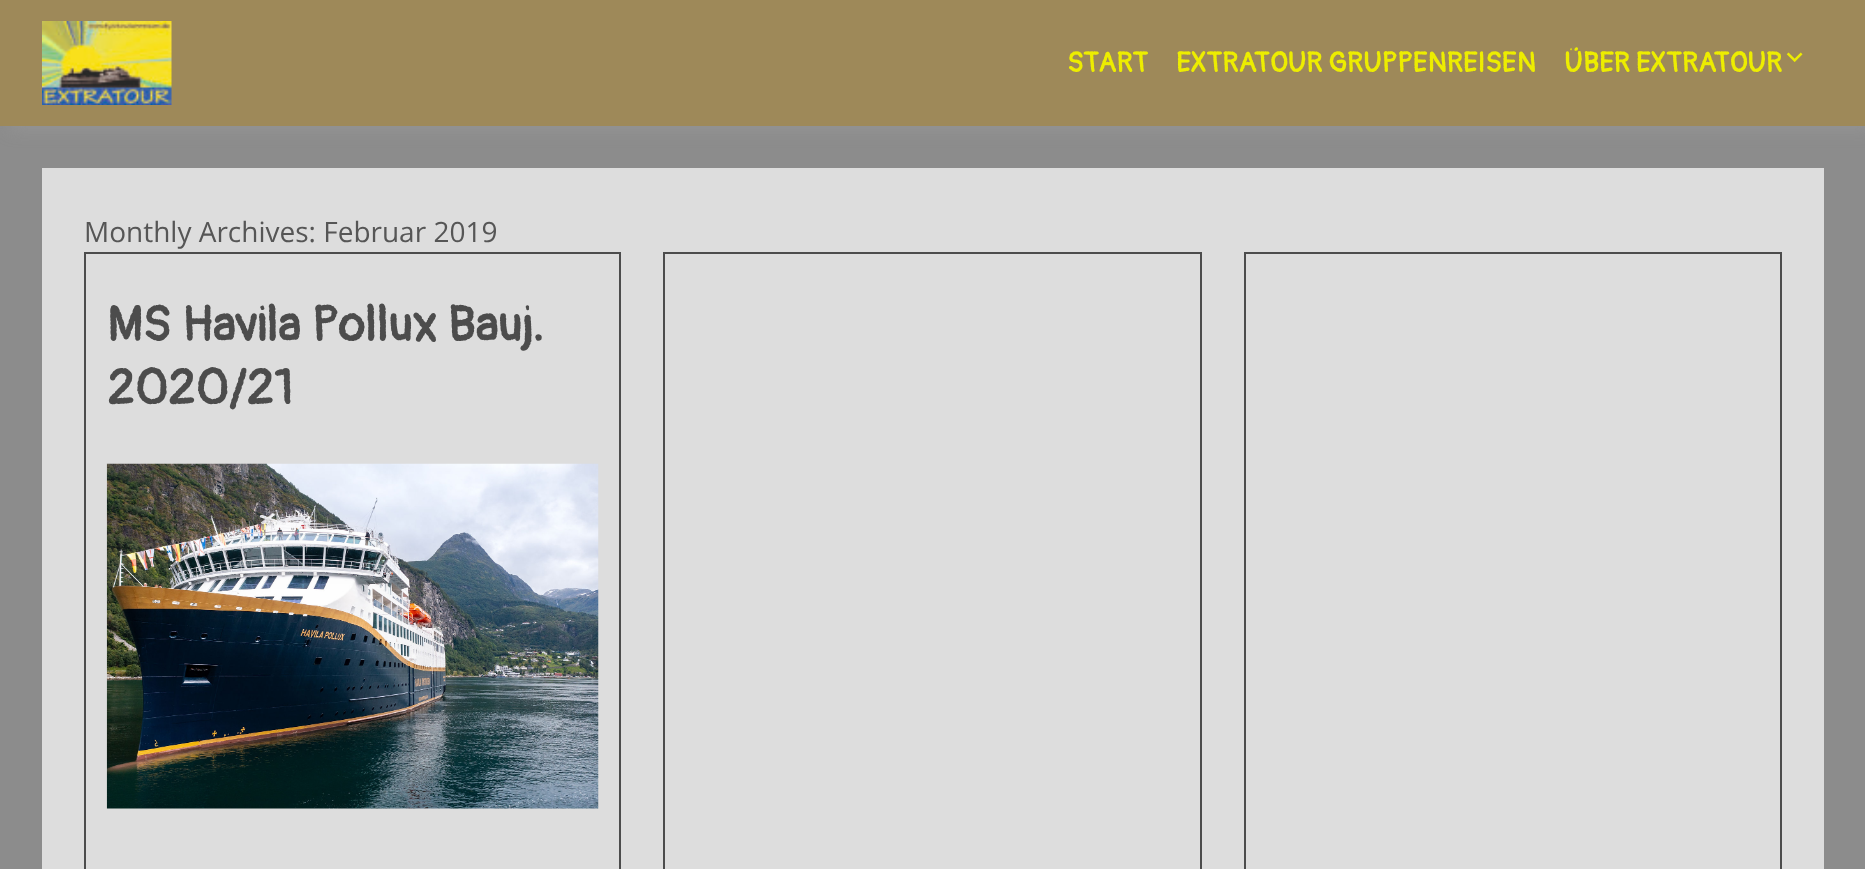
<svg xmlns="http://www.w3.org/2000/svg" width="1865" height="869">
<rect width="100%" height="100%" fill="#8c8c8c"/>
<rect x="9" y="2" width="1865" height="126" fill="#a5a5a566" filter="blur(9px)"/>
<rect width="1865" height="126" fill="#9e8959"/>
<image x="42" y="21" width="130" height="84" href="media/1.png"/>
<text x="1067" y="72" style="font-family:Pangolin;font-size:28px;font-weight:bold;fill:#eded00">START</text>
<text x="1176" y="72" style="font-family:Pangolin;font-size:28px;font-weight:bold;fill:#eded00">EXTRATOUR GRUPPENREISEN</text>
<text x="1564" y="72" style="font-family:Pangolin;font-size:28px;font-weight:bold;fill:#eded00">ÜBER EXTRATOUR</text>
<image x="1786" y="52" width="17" height="10" href="media/2.png"/>
<rect x="42" y="168" width="1782" height="701" fill="#ddd"/>
<text x="84" y="242" style="font-family:Open Sans;font-size:28px;fill:#565656">Monthly Archives: Februar 2019</text>
<rect x="85" y="253" width="535" height="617" fill="none" stroke="#4c4c4c" stroke-width="2"/>
<text x="107" y="341" style="font-family:Pangolin;font-size:49px;font-weight:bold;fill:#4c4c4c">MS Havila Pollux Bauj.</text>
<text x="107" y="404" style="font-family:Pangolin;font-size:49px;font-weight:bold;fill:#4c4c4c">2020/21</text>
<image x="106" y="463" width="493" height="346" href="media/3.png"/>
<rect x="664" y="253" width="537" height="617" fill="none" stroke="#4c4c4c" stroke-width="2"/>
<rect x="1245" y="253" width="536" height="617" fill="none" stroke="#4c4c4c" stroke-width="2"/>
</svg>
